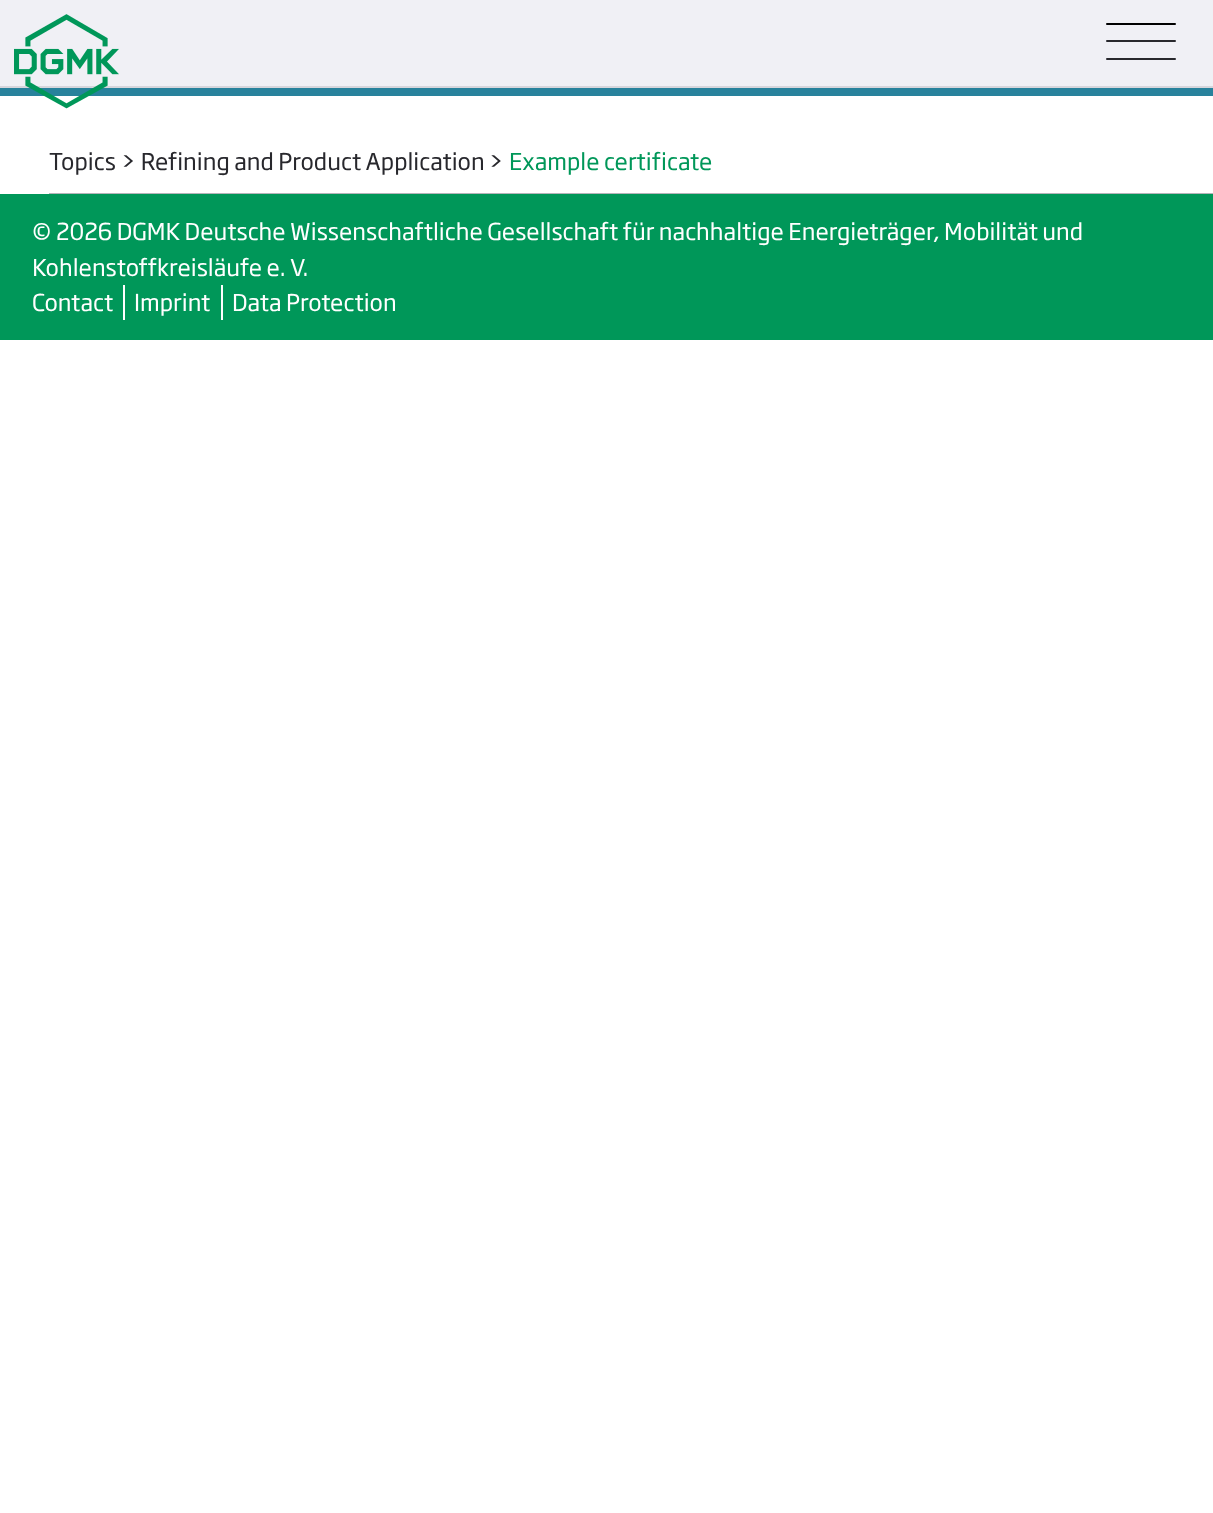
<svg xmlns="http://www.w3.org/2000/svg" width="1213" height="1513">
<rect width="100%" height="100%" fill="#fff"/>
<rect width="1213" height="86" fill="#f0f0f5"/>
<rect y="86" width="1213" height="2" fill="#d6d6dc"/>
<rect y="88" width="1213" height="8" fill="#28829c"/>
<image x="14" y="14" width="105" height="95" href="media/1.png"/>
<rect x="1106" y="23" width="70" height="2" rx="1" fill="#000"/>
<rect x="1106" y="40" width="70" height="2" rx="1" fill="#28282d"/>
<rect x="1106" y="58" width="70" height="2" rx="1" fill="#28282d"/>
<rect x="49" y="193" width="1164" height="1" fill="#b4b4b9"/>
<text x="49" y="170" style="font-family:'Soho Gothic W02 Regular';font-size:23.05px;fill:#28282d">Topics &gt; Refining and Product Application</text>
<text x="488" y="170" style="font-family:'Soho Gothic W02 Regular';font-size:23.05px;fill:#28282d">&gt;</text>
<text x="509" y="170" style="font-family:'Soho Gothic W02 Regular';font-size:23.05px;fill:#009759">Example certificate</text>
<rect y="194" width="1213" height="146" fill="#009759"/>
<text x="32" y="240" style="font-family:'Soho Gothic W02 Regular';font-size:23.05px;fill:#fff">© 2026 DGMK Deutsche Wissenschaftliche Gesellschaft für nachhaltige Energieträger, Mobilität und</text>
<text x="32" y="276" style="font-family:'Soho Gothic W02 Regular';font-size:23.05px;fill:#fff">Kohlenstoffkreisläufe e. V.</text>
<rect x="123" y="285" width="2" height="35" fill="#fff"/>
<text x="32" y="311" style="font-family:'Soho Gothic W02 Regular';font-size:23.05px;fill:#fff">Contact</text>
<rect x="221" y="285" width="2" height="35" fill="#fff"/>
<text x="134" y="311" style="font-family:'Soho Gothic W02 Regular';font-size:23.05px;fill:#fff">Imprint</text>
<text x="232" y="311" style="font-family:'Soho Gothic W02 Regular';font-size:23.05px;fill:#fff">Data Protection</text>
</svg>
